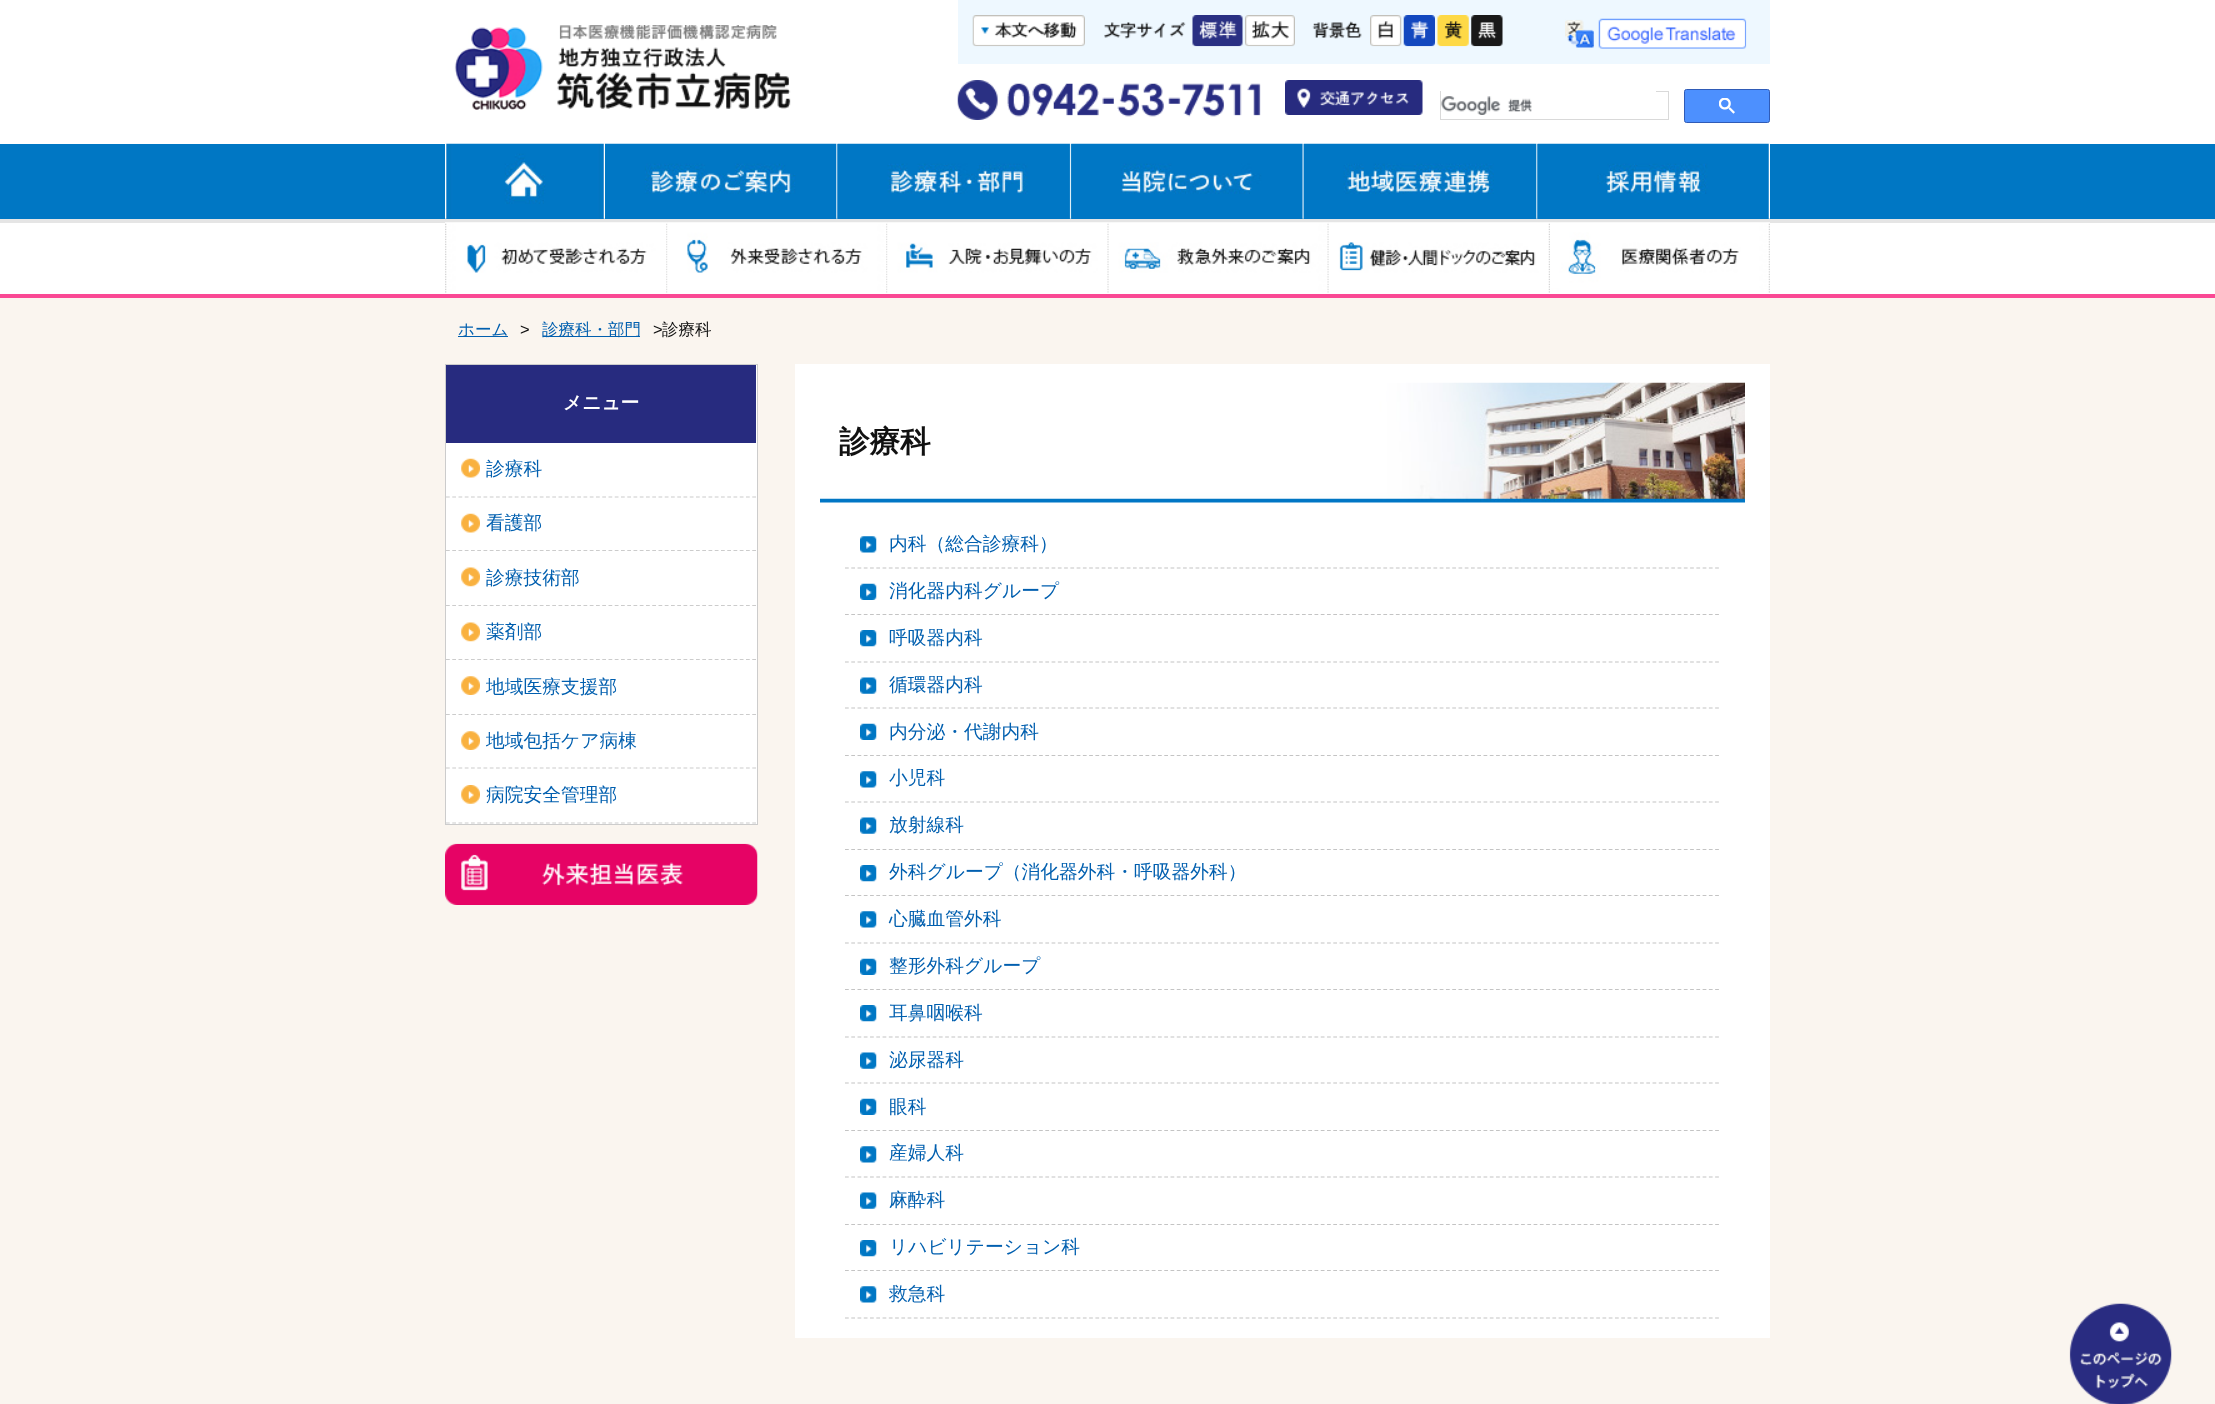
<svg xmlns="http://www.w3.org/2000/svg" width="2215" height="1404">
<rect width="100%" height="100%" fill="#faf5ef"/>
<rect width="2215" height="144" fill="#fff"/>
<image x="454" y="25" width="337" height="85" href="media/1.png"/>
<rect x="958" width="812" height="64" fill="#eef8ff"/>
<image x="972" y="15" width="113" height="32" href="media/2.png"/>
<image x="1104" y="22" width="82" height="17" href="media/3.png"/>
<image x="1192" y="15" width="51" height="32" href="media/4.png"/>
<image x="1245" y="15" width="50" height="32" href="media/5.png"/>
<image x="1312" y="21" width="50" height="18" href="media/6.png"/>
<image x="1370" y="15" width="32" height="32" href="media/7.png"/>
<image x="1403" y="15" width="32" height="32" href="media/8.png"/>
<image x="1437" y="15" width="32" height="32" href="media/9.png"/>
<image x="1471" y="15" width="32" height="32" href="media/10.png"/>
<image x="1565" y="18" width="182" height="31" href="media/11.png"/>
<image x="957" y="80" width="304" height="40" href="media/12.png"/>
<image x="1285" y="80" width="138" height="35" href="media/13.png"/>
<rect x="1440.5" y="91.5" width="228" height="28" fill="none" stroke="#d9d9d9"/>
<rect x="1441" y="91" width="215" height="1" fill="#fff"/>
<image x="1441" y="96" width="91" height="19" href="media/14.png"/>
<rect x="1684.5" y="89.5" width="85" height="33" rx="2" fill="#4d90fe" stroke="#2f5bb7"/>
<image x="1719" y="98" width="16" height="16" href="media/15.png"/>
<rect y="144" width="2215" height="75" fill="#0077c4"/>
<image x="445" y="143" width="160" height="76" href="media/16.png"/>
<image x="605" y="143" width="233" height="76" href="media/17.png"/>
<image x="837" y="143" width="235" height="76" href="media/18.png"/>
<image x="1071" y="143" width="233" height="76" href="media/19.png"/>
<image x="1303" y="143" width="235" height="76" href="media/20.png"/>
<image x="1537" y="143" width="233" height="76" href="media/21.png"/>
<rect y="223" width="2215" height="71" fill="#fff"/>
<rect y="219" width="2215" height="4" fill="#e5e5e5"/>
<rect y="294" width="2215" height="4" fill="#fa4894"/>
<image x="445" y="222" width="223" height="71" href="media/22.png"/>
<image x="445" y="222" width="223" height="71" href="media/23.png"/>
<image x="667" y="222" width="221" height="71" href="media/24.png"/>
<image x="667" y="222" width="221" height="71" href="media/25.png"/>
<image x="887" y="222" width="222" height="71" href="media/26.png"/>
<image x="887" y="222" width="222" height="71" href="media/27.png"/>
<image x="1108" y="222" width="221" height="71" href="media/28.png"/>
<image x="1108" y="222" width="221" height="71" href="media/29.png"/>
<image x="1328" y="222" width="222" height="71" href="media/30.png"/>
<image x="1328" y="222" width="222" height="71" href="media/31.png"/>
<image x="1550" y="222" width="220" height="71" href="media/32.png"/>
<image x="1550" y="222" width="220" height="66" href="media/33.png"/>
<rect x="458" y="336" width="50" height="1" fill="#015faf"/>
<text x="458" y="335" style="font-family:WenQuanYi Zen Hei;font-size:16.5px;font-weight:500;fill:#015faf">ホーム</text>
<text x="520" y="335" style="font-family:Liberation Sans;font-size:16.5px;fill:#111">&gt;</text>
<rect x="543" y="336" width="97" height="1" fill="#015faf"/>
<text x="542" y="335" style="font-family:WenQuanYi Zen Hei;font-size:16.5px;font-weight:500;fill:#015faf">診療科・部門</text>
<text x="653" y="335" style="font-family:Liberation Sans;font-size:16.5px;fill:#111">&gt;</text>
<text x="662" y="335" style="font-family:WenQuanYi Zen Hei;font-size:16.5px;font-weight:500;fill:#111">診療科</text>
<rect x="445.5" y="364.5" width="312" height="460" fill="#fff" stroke="#ccc"/>
<rect x="446" y="365" width="310" height="78" fill="#272b7f"/>
<text x="563" y="409" style="font-family:WenQuanYi Zen Hei;font-size:18.75px;font-weight:bold;fill:#fff">メニュー</text>
<image x="461" y="458" width="19" height="20" href="media/34.png"/>
<path d="M446 497h310" fill="none" stroke="#ccc" stroke-width="1.2" stroke-dasharray="3.75 2.5"/>
<text x="486" y="475" style="font-family:WenQuanYi Zen Hei;font-size:18.75px;font-weight:500;fill:#015faf">診療科</text>
<image x="461" y="513" width="19" height="20" href="media/34.png"/>
<path d="M446 550.5h310" fill="none" stroke="#ccc" stroke-width="1.2" stroke-dasharray="3.75 2.5"/>
<text x="486" y="529" style="font-family:WenQuanYi Zen Hei;font-size:18.75px;font-weight:500;fill:#015faf">看護部</text>
<image x="461" y="567" width="19" height="20" href="media/35.png"/>
<path d="M446 605.5h310" fill="none" stroke="#ccc" stroke-width="1.2" stroke-dasharray="3.75 2.5"/>
<text x="486" y="584" style="font-family:WenQuanYi Zen Hei;font-size:18.75px;font-weight:500;fill:#015faf">診療技術部</text>
<image x="461" y="622" width="19" height="20" href="media/35.png"/>
<path d="M446 659.5h310" fill="none" stroke="#ccc" stroke-width="1.2" stroke-dasharray="3.75 2.5"/>
<text x="486" y="638" style="font-family:WenQuanYi Zen Hei;font-size:18.75px;font-weight:500;fill:#015faf">薬剤部</text>
<image x="461" y="676" width="19" height="19" href="media/36.png"/>
<path d="M446 714.5h310" fill="none" stroke="#ccc" stroke-width="1.2" stroke-dasharray="3.75 2.5"/>
<text x="486" y="693" style="font-family:WenQuanYi Zen Hei;font-size:18.75px;font-weight:500;fill:#015faf">地域医療支援部</text>
<image x="461" y="731" width="19" height="19" href="media/36.png"/>
<path d="M446 768h310" fill="none" stroke="#ccc" stroke-width="1.2" stroke-dasharray="3.75 2.5"/>
<text x="486" y="747" style="font-family:WenQuanYi Zen Hei;font-size:18.75px;font-weight:500;fill:#015faf">地域包括ケア病棟</text>
<image x="461" y="785" width="19" height="19" href="media/37.png"/>
<path d="M446 823h310" fill="none" stroke="#ccc" stroke-width="1.2" stroke-dasharray="3.75 2.5"/>
<text x="486" y="801" style="font-family:WenQuanYi Zen Hei;font-size:18.75px;font-weight:500;fill:#015faf">病院安全管理部</text>
<image x="445" y="843" width="313" height="62" href="media/38.png"/>
<rect x="795" y="364" width="975" height="974" fill="#fff"/>
<image x="820" y="382" width="925" height="121" href="media/39.png"/>
<text x="839" y="452" style="font-family:WenQuanYi Zen Hei;font-size:30.5px;font-weight:bold;fill:#111">診療科</text>
<image x="860" y="536" width="17" height="17" href="media/40.png"/>
<path d="M845 568h875" fill="none" stroke="#c4c4c4" stroke-width="1.2" stroke-dasharray="3.75 2.51"/>
<text x="889" y="550" style="font-family:WenQuanYi Zen Hei;font-size:18.75px;font-weight:500;fill:#015faf">内科（総合診療科）</text>
<image x="860" y="583" width="17" height="17" href="media/41.png"/>
<path d="M845 614.5h875" fill="none" stroke="#c4c4c4" stroke-width="1.2" stroke-dasharray="3.75 2.51"/>
<text x="889" y="597" style="font-family:WenQuanYi Zen Hei;font-size:18.75px;font-weight:500;fill:#015faf">消化器内科グループ</text>
<image x="860" y="630" width="17" height="17" href="media/42.png"/>
<path d="M845 662h875" fill="none" stroke="#c4c4c4" stroke-width="1.2" stroke-dasharray="3.75 2.51"/>
<text x="889" y="644" style="font-family:WenQuanYi Zen Hei;font-size:18.75px;font-weight:500;fill:#015faf">呼吸器内科</text>
<image x="860" y="677" width="17" height="17" href="media/43.png"/>
<path d="M845 708h875" fill="none" stroke="#c4c4c4" stroke-width="1.2" stroke-dasharray="3.75 2.51"/>
<text x="889" y="691" style="font-family:WenQuanYi Zen Hei;font-size:18.75px;font-weight:500;fill:#015faf">循環器内科</text>
<image x="860" y="723" width="17" height="17" href="media/44.png"/>
<path d="M845 755.5h875" fill="none" stroke="#c4c4c4" stroke-width="1.2" stroke-dasharray="3.75 2.51"/>
<text x="889" y="738" style="font-family:WenQuanYi Zen Hei;font-size:18.75px;font-weight:500;fill:#015faf">内分泌・代謝内科</text>
<image x="860" y="771" width="17" height="17" href="media/40.png"/>
<path d="M845 802h875" fill="none" stroke="#c4c4c4" stroke-width="1.2" stroke-dasharray="3.75 2.51"/>
<text x="889" y="784" style="font-family:WenQuanYi Zen Hei;font-size:18.75px;font-weight:500;fill:#015faf">小児科</text>
<image x="860" y="817" width="17" height="17" href="media/43.png"/>
<path d="M845 849.5h875" fill="none" stroke="#c4c4c4" stroke-width="1.2" stroke-dasharray="3.75 2.51"/>
<text x="889" y="831" style="font-family:WenQuanYi Zen Hei;font-size:18.75px;font-weight:500;fill:#015faf">放射線科</text>
<image x="860" y="865" width="17" height="17" href="media/42.png"/>
<path d="M845 895.5h875" fill="none" stroke="#c4c4c4" stroke-width="1.2" stroke-dasharray="3.75 2.51"/>
<text x="889" y="878" style="font-family:WenQuanYi Zen Hei;font-size:18.75px;font-weight:500;fill:#015faf">外科グループ（消化器外科・呼吸器外科）</text>
<image x="860" y="911" width="17" height="17" href="media/40.png"/>
<path d="M845 943h875" fill="none" stroke="#c4c4c4" stroke-width="1.2" stroke-dasharray="3.75 2.51"/>
<text x="889" y="925" style="font-family:WenQuanYi Zen Hei;font-size:18.75px;font-weight:500;fill:#015faf">心臓血管外科</text>
<image x="860" y="958" width="17" height="17" href="media/44.png"/>
<path d="M845 989.5h875" fill="none" stroke="#c4c4c4" stroke-width="1.2" stroke-dasharray="3.75 2.51"/>
<text x="889" y="972" style="font-family:WenQuanYi Zen Hei;font-size:18.75px;font-weight:500;fill:#015faf">整形外科グループ</text>
<image x="860" y="1005" width="17" height="17" href="media/42.png"/>
<path d="M845 1037h875" fill="none" stroke="#c4c4c4" stroke-width="1.2" stroke-dasharray="3.75 2.51"/>
<text x="889" y="1019" style="font-family:WenQuanYi Zen Hei;font-size:18.75px;font-weight:500;fill:#015faf">耳鼻咽喉科</text>
<image x="860" y="1052" width="17" height="17" href="media/43.png"/>
<path d="M845 1083h875" fill="none" stroke="#c4c4c4" stroke-width="1.2" stroke-dasharray="3.75 2.51"/>
<text x="889" y="1066" style="font-family:WenQuanYi Zen Hei;font-size:18.75px;font-weight:500;fill:#015faf">泌尿器科</text>
<image x="860" y="1098" width="17" height="17" href="media/44.png"/>
<path d="M845 1130.5h875" fill="none" stroke="#c4c4c4" stroke-width="1.2" stroke-dasharray="3.75 2.51"/>
<text x="889" y="1113" style="font-family:WenQuanYi Zen Hei;font-size:18.75px;font-weight:500;fill:#015faf">眼科</text>
<image x="860" y="1146" width="17" height="17" href="media/40.png"/>
<path d="M845 1177h875" fill="none" stroke="#c4c4c4" stroke-width="1.2" stroke-dasharray="3.75 2.51"/>
<text x="889" y="1159" style="font-family:WenQuanYi Zen Hei;font-size:18.75px;font-weight:500;fill:#015faf">産婦人科</text>
<image x="860" y="1192" width="17" height="17" href="media/43.png"/>
<path d="M845 1224.5h875" fill="none" stroke="#c4c4c4" stroke-width="1.2" stroke-dasharray="3.75 2.51"/>
<text x="889" y="1206" style="font-family:WenQuanYi Zen Hei;font-size:18.75px;font-weight:500;fill:#015faf">麻酔科</text>
<image x="860" y="1240" width="17" height="17" href="media/42.png"/>
<path d="M845 1270.5h875" fill="none" stroke="#c4c4c4" stroke-width="1.2" stroke-dasharray="3.75 2.51"/>
<text x="889" y="1253" style="font-family:WenQuanYi Zen Hei;font-size:18.75px;font-weight:500;fill:#015faf">リハビリテーション科</text>
<image x="860" y="1286" width="17" height="17" href="media/40.png"/>
<path d="M845 1318h875" fill="none" stroke="#c4c4c4" stroke-width="1.2" stroke-dasharray="3.75 2.51"/>
<text x="889" y="1300" style="font-family:WenQuanYi Zen Hei;font-size:18.75px;font-weight:500;fill:#015faf">救急科</text>
<image x="2069" y="1303" width="103" height="101" href="media/45.png"/>
</svg>
